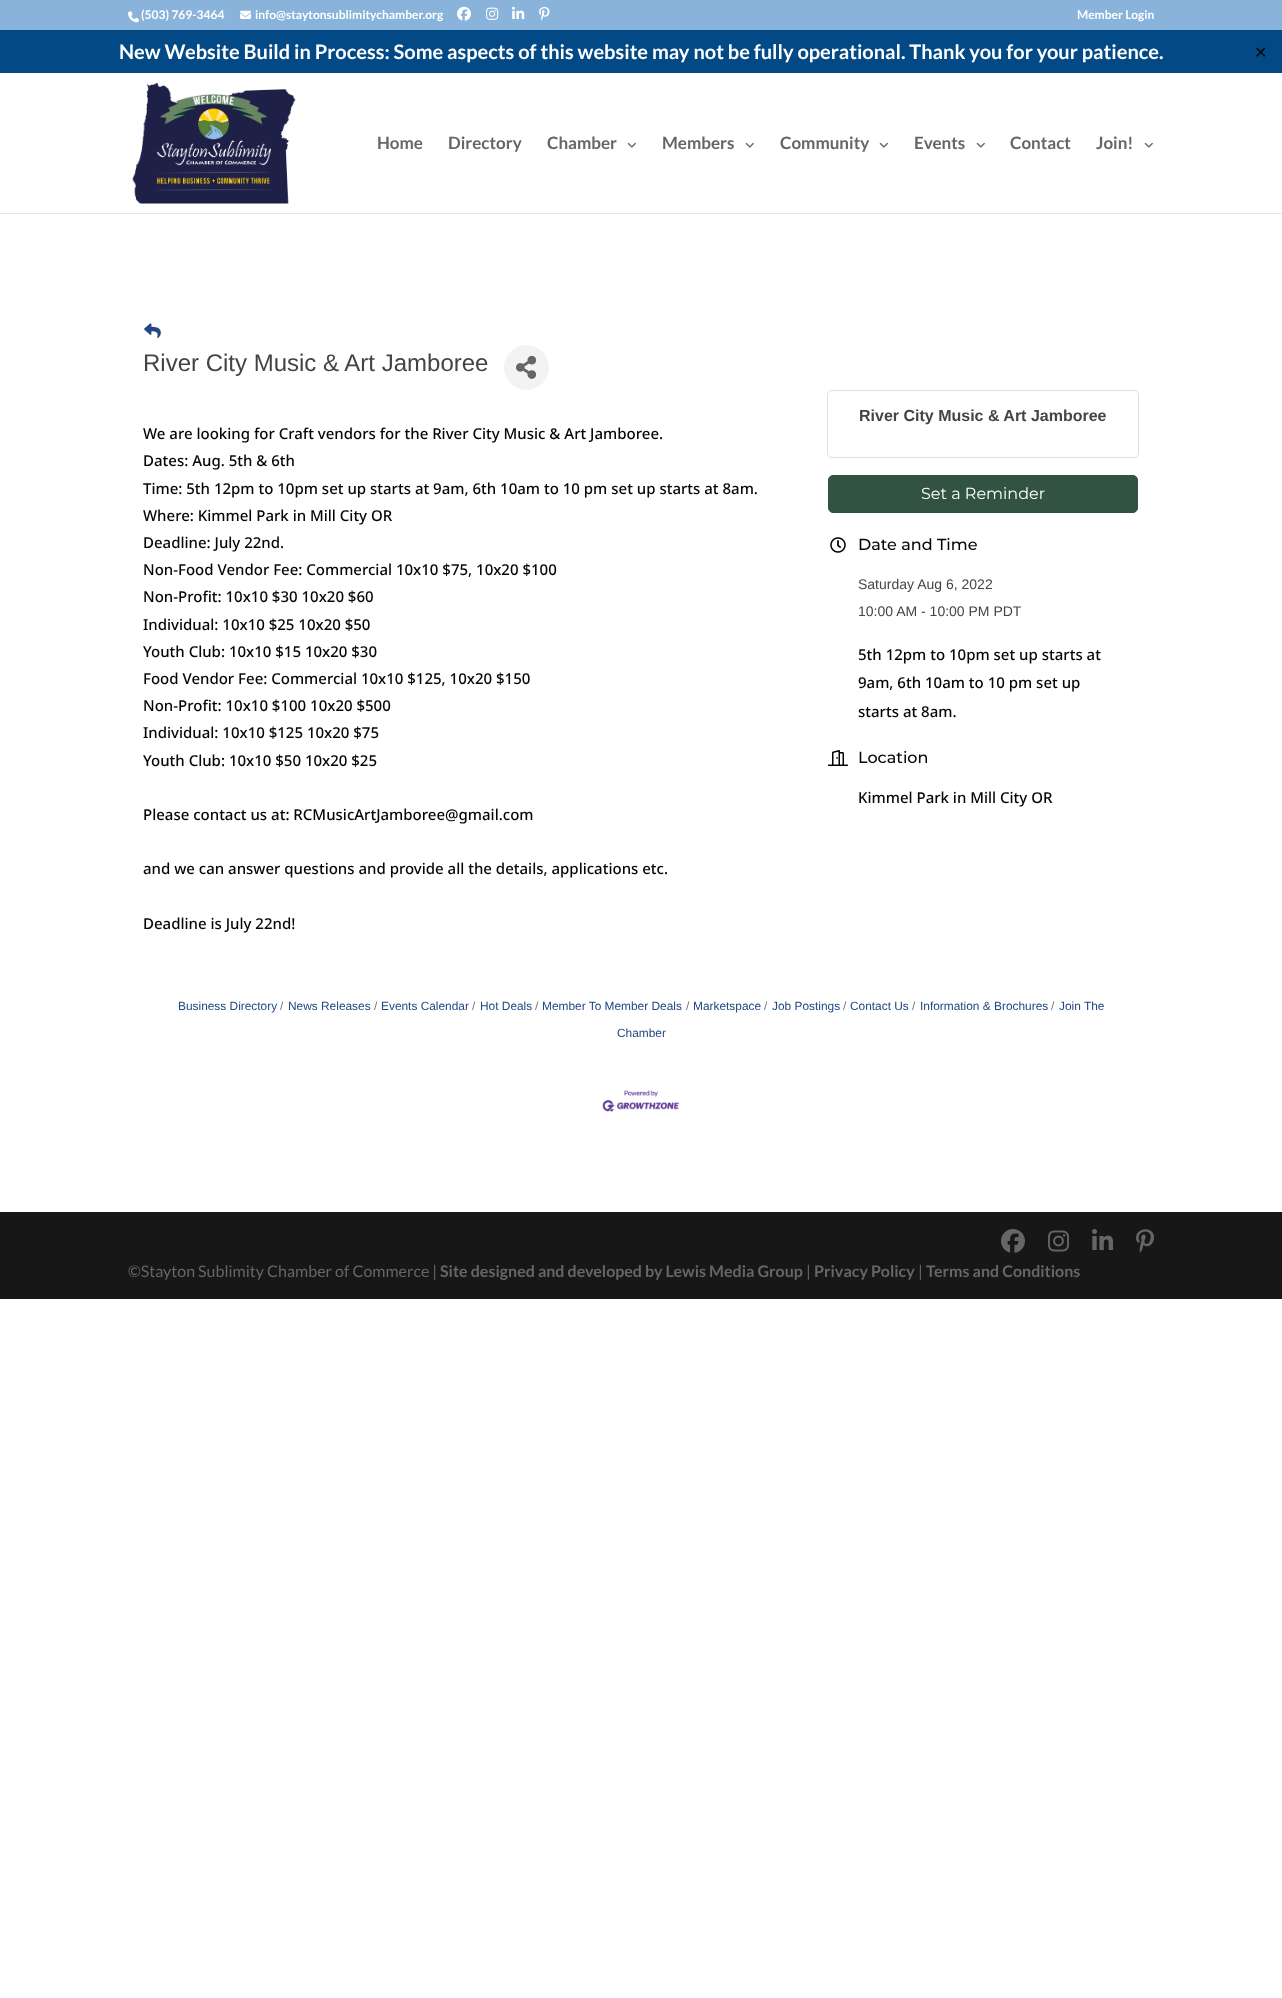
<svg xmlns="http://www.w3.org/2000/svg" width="1282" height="1998">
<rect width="100%" height="100%" fill="#fff"/>
<rect width="1282" height="30" fill="#89b3db"/>
<image x="128" y="11" width="11" height="12" href="media/1.png"/>
<text x="141" y="19" style="font-family:Lato;font-size:12px;font-weight:bold;fill:#fff">(503) 769-3464</text>
<image x="240" y="10" width="11" height="9" href="media/2.png"/>
<text x="255" y="19" style="font-family:Lato;font-size:12px;font-weight:bold;fill:#fff">info@staytonsublimitychamber.org</text>
<image x="457" y="6" width="14" height="15" href="media/3.png"/>
<image x="486" y="7" width="13" height="13" href="media/4.png"/>
<image x="512" y="6" width="13" height="13" href="media/5.png"/>
<image x="539" y="6" width="11" height="15" href="media/6.png"/>
<text x="1077" y="19" style="font-family:Lato;font-size:12px;font-weight:bold;fill:#fff">Member Login</text>
<rect y="213" width="1282" height="1" fill="#e6e6e6"/>
<rect y="30" width="1282" height="43" fill="#024985"/>
<text x="119" y="59" style="font-family:Lato;font-size:20px;font-weight:bold;fill:#fff">New Website Build in Process: Some aspects of this website may not be fully operational. Thank you for your patience.</text>
<text x="1254" y="58" style="font-family:DejaVu Sans;font-size:16px;fill:#050505">✕</text>
<image x="132" y="82" width="164" height="122" href="media/7.png"/>
<text x="377" y="149" style="font-family:Lato;font-size:17px;font-weight:bold;fill:#666">Home</text>
<text x="448" y="149" style="font-family:Lato;font-size:17px;font-weight:bold;fill:#666">Directory</text>
<text x="547" y="149" style="font-family:Lato;font-size:17px;font-weight:bold;fill:#666">Chamber</text>
<image x="627" y="142" width="9" height="6" href="media/8.png"/>
<text x="662" y="149" style="font-family:Lato;font-size:17px;font-weight:bold;fill:#666">Members</text>
<image x="745" y="142" width="9" height="6" href="media/8.png"/>
<text x="780" y="149" style="font-family:Lato;font-size:17px;font-weight:bold;fill:#666">Community</text>
<image x="879" y="142" width="9" height="6" href="media/8.png"/>
<text x="914" y="149" style="font-family:Lato;font-size:17px;font-weight:bold;fill:#666">Events</text>
<image x="976" y="142" width="9" height="6" href="media/8.png"/>
<text x="1010" y="149" style="font-family:Lato;font-size:17px;font-weight:bold;fill:#666">Contact</text>
<text x="1096" y="149" style="font-family:Lato;font-size:17px;font-weight:bold;fill:#666">Join!</text>
<image x="1144" y="142" width="9" height="6" href="media/8.png"/>
<image x="144" y="323" width="17" height="15" href="media/9.png"/>
<text x="143" y="371" style="font-family:Liberation Sans;font-size:24px;fill:#444">River City Music &amp; Art Jamboree</text>
<circle cx="526.5" cy="367.5" r="22.5" fill="#f3f3f3"/>
<image x="516" y="355" width="21" height="24" href="media/10.png"/>
<text x="143" y="439" style="font-family:Noto Sans;font-size:15px;font-weight:500;fill:#050505">We are looking for Craft vendors for the River City Music &amp; Art Jamboree.</text>
<text x="143" y="466" style="font-family:Noto Sans;font-size:15px;font-weight:500;fill:#050505">Dates: Aug. 5th &amp; 6th</text>
<text x="143" y="494" style="font-family:Noto Sans;font-size:15px;font-weight:500;fill:#050505">Time: 5th 12pm to 10pm set up starts at 9am, 6th 10am to 10 pm set up starts at 8am.</text>
<text x="143" y="521" style="font-family:Noto Sans;font-size:15px;font-weight:500;fill:#050505">Where: Kimmel Park in Mill City OR</text>
<text x="143" y="548" style="font-family:Noto Sans;font-size:15px;font-weight:500;fill:#050505">Deadline: July 22nd.</text>
<text x="143" y="575" style="font-family:Noto Sans;font-size:15px;font-weight:500;fill:#050505">Non-Food Vendor Fee: Commercial 10x10 $75, 10x20 $100</text>
<text x="143" y="602" style="font-family:Noto Sans;font-size:15px;font-weight:500;fill:#050505">Non-Profit: 10x10 $30 10x20 $60</text>
<text x="143" y="630" style="font-family:Noto Sans;font-size:15px;font-weight:500;fill:#050505">Individual: 10x10 $25 10x20 $50</text>
<text x="143" y="657" style="font-family:Noto Sans;font-size:15px;font-weight:500;fill:#050505">Youth Club: 10x10 $15 10x20 $30</text>
<text x="143" y="684" style="font-family:Noto Sans;font-size:15px;font-weight:500;fill:#050505">Food Vendor Fee: Commercial 10x10 $125, 10x20 $150</text>
<text x="143" y="711" style="font-family:Noto Sans;font-size:15px;font-weight:500;fill:#050505">Non-Profit: 10x10 $100 10x20 $500</text>
<text x="143" y="738" style="font-family:Noto Sans;font-size:15px;font-weight:500;fill:#050505">Individual: 10x10 $125 10x20 $75</text>
<text x="143" y="766" style="font-family:Noto Sans;font-size:15px;font-weight:500;fill:#050505">Youth Club: 10x10 $50 10x20 $25</text>
<text x="143" y="820" style="font-family:Noto Sans;font-size:15px;font-weight:500;fill:#050505">Please contact us at: RCMusicArtJamboree@gmail.com</text>
<text x="143" y="874" style="font-family:Noto Sans;font-size:15px;font-weight:500;fill:#050505">and we can answer questions and provide all the details, applications etc.</text>
<text x="143" y="929" style="font-family:Noto Sans;font-size:15px;font-weight:500;fill:#050505">Deadline is July 22nd!</text>
<rect x="827.5" y="390.5" width="311" height="67" rx="4.5" fill="none" stroke="#dfdfdf"/>
<text x="859" y="421" style="font-family:Liberation Sans;font-size:16px;font-weight:bold;fill:#444">River City Music &amp; Art Jamboree</text>
<rect x="828.5" y="475.5" width="309" height="37" rx="4.5" fill="#325342" stroke="#325342"/>
<text x="921" y="499" style="font-family:Montserrat;font-size:16px;fill:#fff">Set a Reminder</text>
<image x="830" y="537" width="16" height="16" href="media/11.png"/>
<text x="858" y="550" style="font-family:Montserrat;font-size:16px;font-weight:500;fill:#050505">Date and Time</text>
<text x="858" y="589" style="font-family:Liberation Sans;font-size:14px;fill:#444">Saturday Aug 6, 2022</text>
<text x="858" y="616" style="font-family:Liberation Sans;font-size:14px;fill:#444">10:00 AM - 10:00 PM PDT</text>
<text x="858" y="660" style="font-family:Noto Sans;font-size:15px;font-weight:500;fill:#050505">5th 12pm to 10pm set up starts at</text>
<text x="858" y="688" style="font-family:Noto Sans;font-size:15px;font-weight:500;fill:#050505">9am, 6th 10am to 10 pm set up</text>
<text x="858" y="717" style="font-family:Noto Sans;font-size:15px;font-weight:500;fill:#050505">starts at 8am.</text>
<image x="828" y="750" width="20" height="16" href="media/12.png"/>
<text x="858" y="763" style="font-family:Montserrat;font-size:16px;font-weight:500;fill:#050505">Location</text>
<text x="858" y="803" style="font-family:Noto Sans;font-size:15px;font-weight:500;fill:#050505">Kimmel Park in Mill City OR</text>
<text x="178" y="1010" style="font-family:Liberation Sans;font-size:11.9px;fill:#224884">Business Directory</text>
<text x="280" y="1010" style="font-family:Liberation Sans;font-size:11.9px;fill:#6c757d">/</text>
<text x="288" y="1010" style="font-family:Liberation Sans;font-size:11.9px;fill:#224884">News Releases</text>
<text x="374" y="1010" style="font-family:Liberation Sans;font-size:11.9px;fill:#6c757d">/</text>
<text x="381" y="1010" style="font-family:Liberation Sans;font-size:11.9px;fill:#224884">Events Calendar</text>
<text x="472" y="1010" style="font-family:Liberation Sans;font-size:11.9px;fill:#6c757d">/</text>
<text x="480" y="1010" style="font-family:Liberation Sans;font-size:11.9px;fill:#224884">Hot Deals</text>
<text x="535" y="1010" style="font-family:Liberation Sans;font-size:11.9px;fill:#6c757d">/</text>
<text x="542" y="1010" style="font-family:Liberation Sans;font-size:11.9px;fill:#224884">Member To Member Deals</text>
<text x="1051" y="1010" style="font-family:Liberation Sans;font-size:11.9px;fill:#6c757d">/</text>
<text x="1059" y="1010" style="font-family:Liberation Sans;font-size:11.9px;fill:#224884">Join The</text>
<text x="617" y="1037" style="font-family:Liberation Sans;font-size:11.9px;fill:#224884">Chamber</text>
<text x="686" y="1010" style="font-family:Liberation Sans;font-size:11.9px;fill:#6c757d">/</text>
<text x="693" y="1010" style="font-family:Liberation Sans;font-size:11.9px;fill:#224884">Marketspace</text>
<text x="764" y="1010" style="font-family:Liberation Sans;font-size:11.9px;fill:#6c757d">/</text>
<text x="772" y="1010" style="font-family:Liberation Sans;font-size:11.9px;fill:#224884">Job Postings</text>
<text x="843" y="1010" style="font-family:Liberation Sans;font-size:11.9px;fill:#6c757d">/</text>
<text x="850" y="1010" style="font-family:Liberation Sans;font-size:11.9px;fill:#224884">Contact Us</text>
<text x="912" y="1010" style="font-family:Liberation Sans;font-size:11.9px;fill:#6c757d">/</text>
<text x="920" y="1010" style="font-family:Liberation Sans;font-size:11.9px;fill:#224884">Information &amp; Brochures</text>
<image x="602" y="1090" width="78" height="22" href="media/13.png"/>
<rect y="1212" width="1282" height="87" fill="#171717"/>
<image x="1001" y="1229" width="24" height="24" href="media/14.png"/>
<image x="1048" y="1230" width="21" height="22" href="media/15.png"/>
<image x="1092" y="1229" width="21" height="21" href="media/16.png"/>
<image x="1136" y="1229" width="18" height="24" href="media/17.png"/>
<text x="128" y="1277" style="font-family:Lato;font-size:16px;fill:#666">©Stayton Sublimity Chamber of Commerce |</text>
<text x="440" y="1277" style="font-family:Lato;font-size:16px;font-weight:bold;fill:#666">Site designed and developed by Lewis Media Group</text>
<text x="806" y="1277" style="font-family:Lato;font-size:16px;fill:#666">|</text>
<text x="814" y="1277" style="font-family:Lato;font-size:16px;font-weight:bold;fill:#666">Privacy Policy</text>
<text x="918" y="1277" style="font-family:Lato;font-size:16px;fill:#666">|</text>
<text x="926" y="1277" style="font-family:Lato;font-size:16px;font-weight:bold;fill:#666">Terms and Conditions</text>
</svg>
